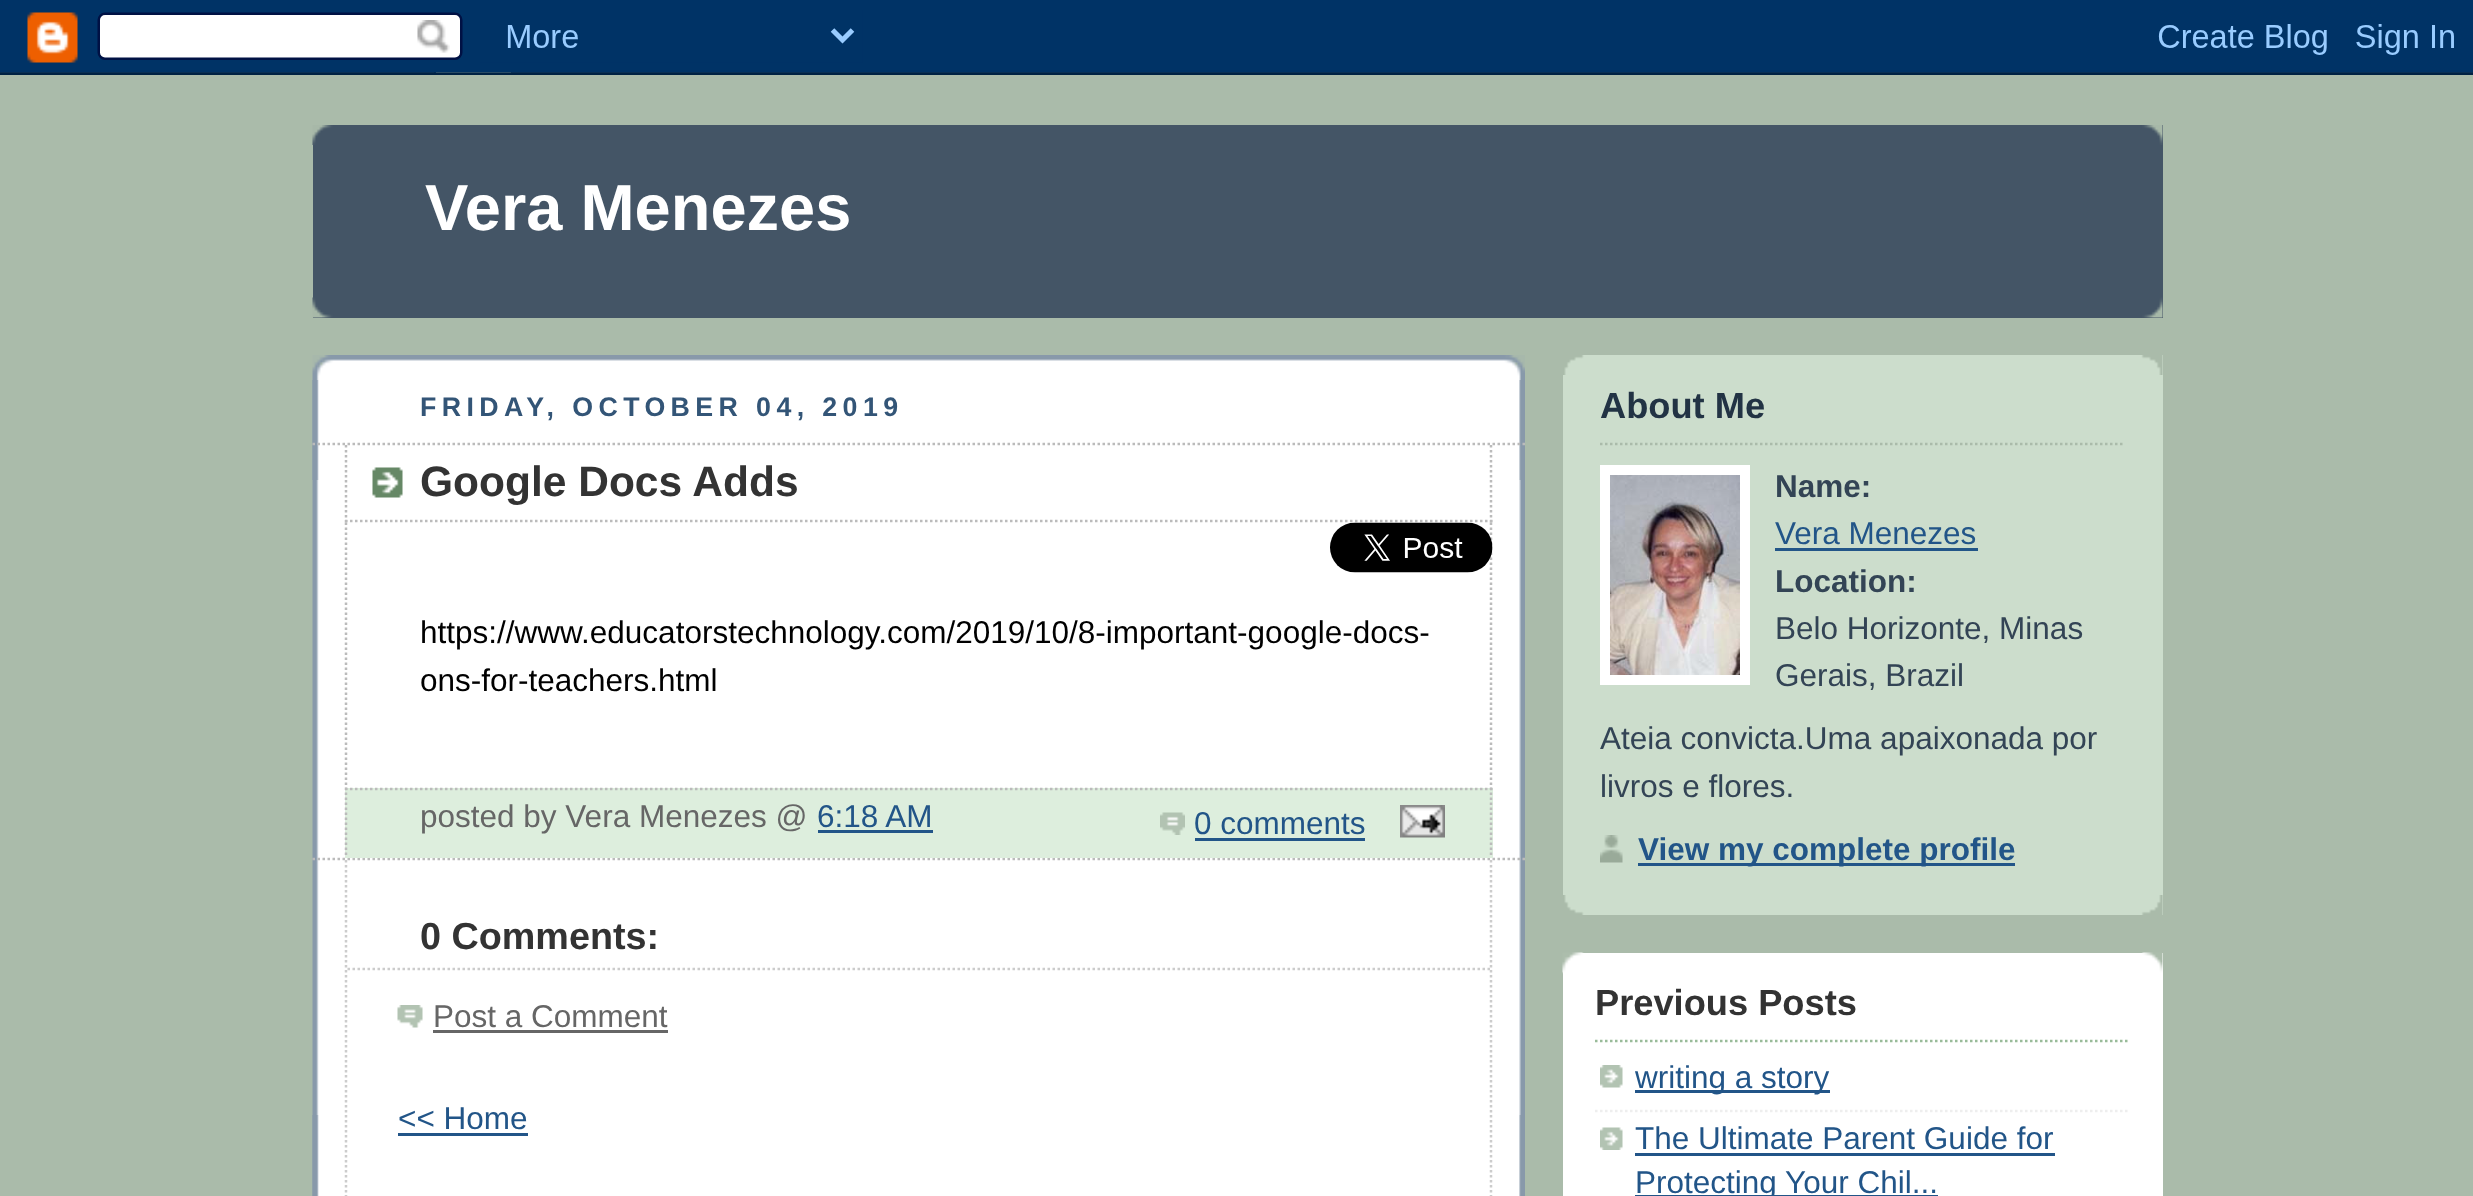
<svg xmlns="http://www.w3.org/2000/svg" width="2473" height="1196">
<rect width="100%" height="100%" fill="#aba"/>
<image x="0" y="0" width="2473" height="75" href="media/1.png"/>
<rect x="313" y="125" width="1850" height="193" fill="#456"/>
<image x="312" y="125" width="1851" height="20" href="media/2.png"/>
<image x="312" y="297" width="1851" height="21" href="media/3.png"/>
<text x="425" y="230" style="font-family:Liberation Sans;font-size:65px;font-weight:bold;fill:#fff">Vera Menezes</text>
<rect x="316" y="359" width="1205" height="837" fill="#fff"/>
<image x="312" y="1115" width="1209" height="81" href="media/4.png"/>
<image x="312" y="355" width="1213" height="125" href="media/5.png"/>
<image x="312" y="380" width="1213" height="816" href="media/6.png"/>
<text x="420" y="416" style="font-family:Liberation Sans;font-size:26.75px;font-weight:bold;letter-spacing:5.4px;fill:#357">FRIDAY, OCTOBER 04, 2019</text>
<path d="M312.5 444h1212.5" fill="none" stroke="#bbb" stroke-width="2.5" stroke-dasharray="2.5 2.5"/>
<path d="M312.5 859h1212.5" fill="none" stroke="#bbb" stroke-width="2.5" stroke-dasharray="2.5 2.5"/>
<image x="372" y="467" width="31" height="31" href="media/7.png"/>
<path d="M1491 445v77.5" fill="none" stroke="#bbb" stroke-width="2.5" stroke-dasharray="2.5 2.5"/>
<path d="M345 521h1147.5" fill="none" stroke="#bbb" stroke-width="2.5" stroke-dasharray="2.5 2.5"/>
<path d="M346 445v77.5" fill="none" stroke="#bbb" stroke-width="2.5" stroke-dasharray="2.5 2.5"/>
<text x="420" y="496" style="font-family:Liberation Sans;font-size:42.5px;font-weight:bold;fill:#333">Google Docs Adds</text>
<path d="M1491 522.5v265" fill="none" stroke="#bbb" stroke-width="2.5" stroke-dasharray="2.5 2.5"/>
<image x="1330" y="522" width="163" height="51" href="media/8.png"/>
<path d="M346 522.5v265" fill="none" stroke="#bbb" stroke-width="2.5" stroke-dasharray="2.5 2.5"/>
<text x="420" y="643" style="font-family:Liberation Sans;font-size:31.5px;fill:#000">https://www.educatorstechnology.com/2019/10/8-important-google-docs-</text>
<text x="420" y="691" style="font-family:Liberation Sans;font-size:31.5px;fill:#000">ons-for-teachers.html</text>
<rect x="345" y="788" width="1148" height="70" fill="#ded"/>
<path d="M345 789h1147.5" fill="none" stroke="#bbb" stroke-width="2.5" stroke-dasharray="2.5 2.5"/>
<path d="M1491 787.5v70" fill="none" stroke="#bbb" stroke-width="2.5" stroke-dasharray="2.5 2.5"/>
<path d="M346 787.5v70" fill="none" stroke="#bbb" stroke-width="2.5" stroke-dasharray="2.5 2.5"/>
<text x="420" y="827" style="font-family:Liberation Sans;font-size:31.5px;fill:#666">posted by Vera Menezes @</text>
<text x="817" y="827" style="font-family:Liberation Sans;font-size:31.5px;fill:#258">6:18 AM</text>
<rect x="818" y="830" width="115" height="3" fill="#258"/>
<image x="1160" y="812" width="25" height="23" href="media/9.png"/>
<text x="1194" y="834" style="font-family:Liberation Sans;font-size:31.5px;fill:#258">0 comments</text>
<rect x="1195" y="838" width="170" height="3" fill="#258"/>
<image x="1400" y="805" width="45" height="33" href="media/10.png"/>
<path d="M1491 860v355" fill="none" stroke="#ccc" stroke-width="2.5" stroke-dasharray="2.5 2.5"/>
<path d="M346 860v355" fill="none" stroke="#ccc" stroke-width="2.5" stroke-dasharray="2.5 2.5"/>
<path d="M347.5 969h1142.5" fill="none" stroke="#ccc" stroke-width="2.5" stroke-dasharray="2.5 2.5"/>
<text x="420" y="949" style="font-family:Liberation Sans;font-size:37.75px;font-weight:bold;fill:#333">0 Comments:</text>
<image x="397" y="1005" width="26" height="23" href="media/11.png"/>
<text x="433" y="1027" style="font-family:Liberation Sans;font-size:31.5px;fill:#666">Post a Comment</text>
<rect x="433" y="1030" width="235" height="3" fill="#666"/>
<text x="398" y="1129" style="font-family:Liberation Sans;font-size:31.5px;fill:#258">&lt;&lt; Home</text>
<rect x="398" y="1133" width="130" height="3" fill="#258"/>
<rect x="1563" y="355" width="600" height="560" fill="#cdc"/>
<image x="1563" y="895" width="600" height="20" href="media/12.png"/>
<image x="1563" y="355" width="600" height="20" href="media/13.png"/>
<text x="1600" y="418" style="font-family:Liberation Sans;font-size:36.25px;font-weight:bold;fill:#234">About Me</text>
<path d="M1600 444h525" fill="none" stroke="#aba" stroke-width="2.5" stroke-dasharray="2.5 2.5"/>
<rect x="1605" y="470" width="140" height="210" fill="none" stroke="#fff" stroke-width="10"/>
<image x="1610" y="475" width="130" height="200" href="media/14.png"/>
<text x="1775" y="497" style="font-family:Liberation Sans;font-size:31.5px;font-weight:bold;fill:#345">Name:</text>
<text x="1775" y="544" style="font-family:Liberation Sans;font-size:31.5px;fill:#258">Vera Menezes</text>
<rect x="1775" y="548" width="203" height="3" fill="#258"/>
<text x="1775" y="592" style="font-family:Liberation Sans;font-size:31.5px;font-weight:bold;fill:#345">Location:</text>
<text x="1775" y="639" style="font-family:Liberation Sans;font-size:31.5px;fill:#345">Belo Horizonte, Minas</text>
<text x="1775" y="686" style="font-family:Liberation Sans;font-size:31.5px;fill:#345">Gerais, Brazil</text>
<text x="1600" y="749" style="font-family:Liberation Sans;font-size:31.5px;fill:#345">Ateia convicta.Uma apaixonada por</text>
<text x="1600" y="797" style="font-family:Liberation Sans;font-size:31.5px;fill:#345">livros e flores.</text>
<image x="1600" y="835" width="23" height="28" href="media/15.png"/>
<rect x="1638" y="863" width="377" height="3" fill="#258"/>
<text x="1638" y="860" style="font-family:Liberation Sans;font-size:31.5px;font-weight:bold;fill:#258">View my complete profile</text>
<rect x="1563" y="953" width="600" height="243" fill="#fff"/>
<image x="1562" y="952" width="601" height="22" href="media/16.png"/>
<path d="M1595 1041h535" fill="none" stroke="#9b9" stroke-width="2.5" stroke-dasharray="2.5 2.5"/>
<text x="1595" y="1015" style="font-family:Liberation Sans;font-size:36.25px;font-weight:bold;fill:#333">Previous Posts</text>
<image x="1600" y="1065" width="23" height="23" href="media/17.png"/>
<path d="M1595 1111h535" fill="none" stroke="#eee" stroke-width="2.5" stroke-dasharray="2.5 2.5"/>
<rect x="1635" y="1090" width="195" height="3" fill="#258"/>
<text x="1635" y="1088" style="font-family:Liberation Sans;font-size:31.5px;fill:#258">writing a story</text>
<image x="1600" y="1127" width="23" height="23" href="media/18.png"/>
<text x="1635" y="1149" style="font-family:Liberation Sans;font-size:31.5px;fill:#258">The Ultimate Parent Guide for</text>
<rect x="1635" y="1153" width="420" height="3" fill="#258"/>
<rect x="1635" y="1195" width="303" height="1" fill="#258"/>
<text x="1635" y="1193" style="font-family:Liberation Sans;font-size:31.5px;fill:#258">Protecting Your Chil...</text>
</svg>
